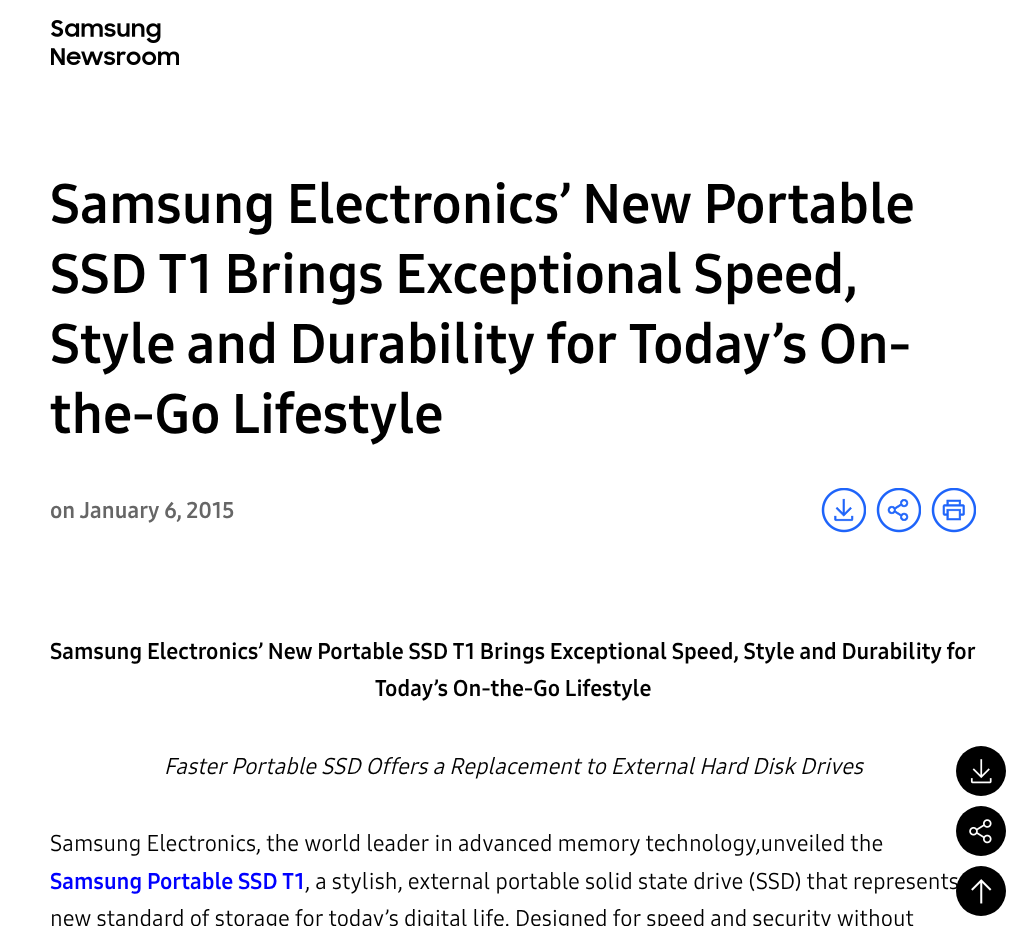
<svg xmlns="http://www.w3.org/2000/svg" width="1026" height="926">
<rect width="100%" height="100%" fill="#fff"/>
<image x="51" y="20" width="128" height="45" href="media/1.png"/>
<text x="50" y="223" style="font-family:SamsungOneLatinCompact;font-size:55px;font-weight:bold;fill:#000">Samsung Electronics’ New Portable</text>
<text x="50" y="293" style="font-family:SamsungOneLatinCompact;font-size:55px;font-weight:bold;fill:#000">SSD T1 Brings Exceptional Speed,</text>
<text x="50" y="363" style="font-family:SamsungOneLatinCompact;font-size:55px;font-weight:bold;fill:#000">Style and Durability for Today’s On-</text>
<text x="50" y="433" style="font-family:SamsungOneLatinCompact;font-size:55px;font-weight:bold;fill:#000">the-Go Lifestyle</text>
<text x="50" y="518" style="font-family:SamsungOneLatinCompact;font-size:22.5px;font-weight:bold;fill:#666">on January 6, 2015</text>
<image x="821" y="488" width="45" height="45" href="media/2.png"/>
<image x="876" y="488" width="45" height="45" href="media/3.png"/>
<image x="931" y="488" width="45" height="45" href="media/4.png"/>
<text x="50" y="659" style="font-family:SamsungOneLatinCompact;font-size:22.5px;font-weight:bold;fill:#000">Samsung Electronics’ New Portable SSD T1 Brings Exceptional Speed, Style and Durability for</text>
<text x="375" y="696" style="font-family:SamsungOneLatinCompact;font-size:22.5px;font-weight:bold;fill:#000">Today’s On-the-Go Lifestyle</text>
<text x="164" y="774" style="font-family:SamsungOneLatinCompact;font-size:22.5px;font-style:italic;fill:#000">Faster Portable SSD Offers a Replacement to External Hard Disk Drives</text>
<text x="50" y="851" style="font-family:SamsungOneLatinCompact;font-size:22.5px;fill:#000">Samsung Electronics, the world leader in advanced memory technology,unveiled the</text>
<text x="50" y="889" style="font-family:SamsungOneLatinCompact;font-size:22.5px;font-weight:bold;fill:#00f">Samsung Portable SSD T1</text>
<text x="305" y="889" style="font-family:SamsungOneLatinCompact;font-size:22.5px;fill:#000">, a stylish, external portable solid state drive (SSD) that represents</text>
<text x="50" y="926" style="font-family:SamsungOneLatinCompact;font-size:22.5px;fill:#000">new standard of storage for today’s digital life. Designed for speed and security without</text>
<circle cx="981" cy="771" r="25" fill="#000"/>
<image x="970" y="759" width="22" height="25" href="media/5.png"/>
<circle cx="981" cy="831" r="25" fill="#000"/>
<image x="969" y="819" width="23" height="25" href="media/6.png"/>
<circle cx="981" cy="891" r="25" fill="#000"/>
<image x="971" y="879" width="21" height="25" href="media/7.png"/>
</svg>
